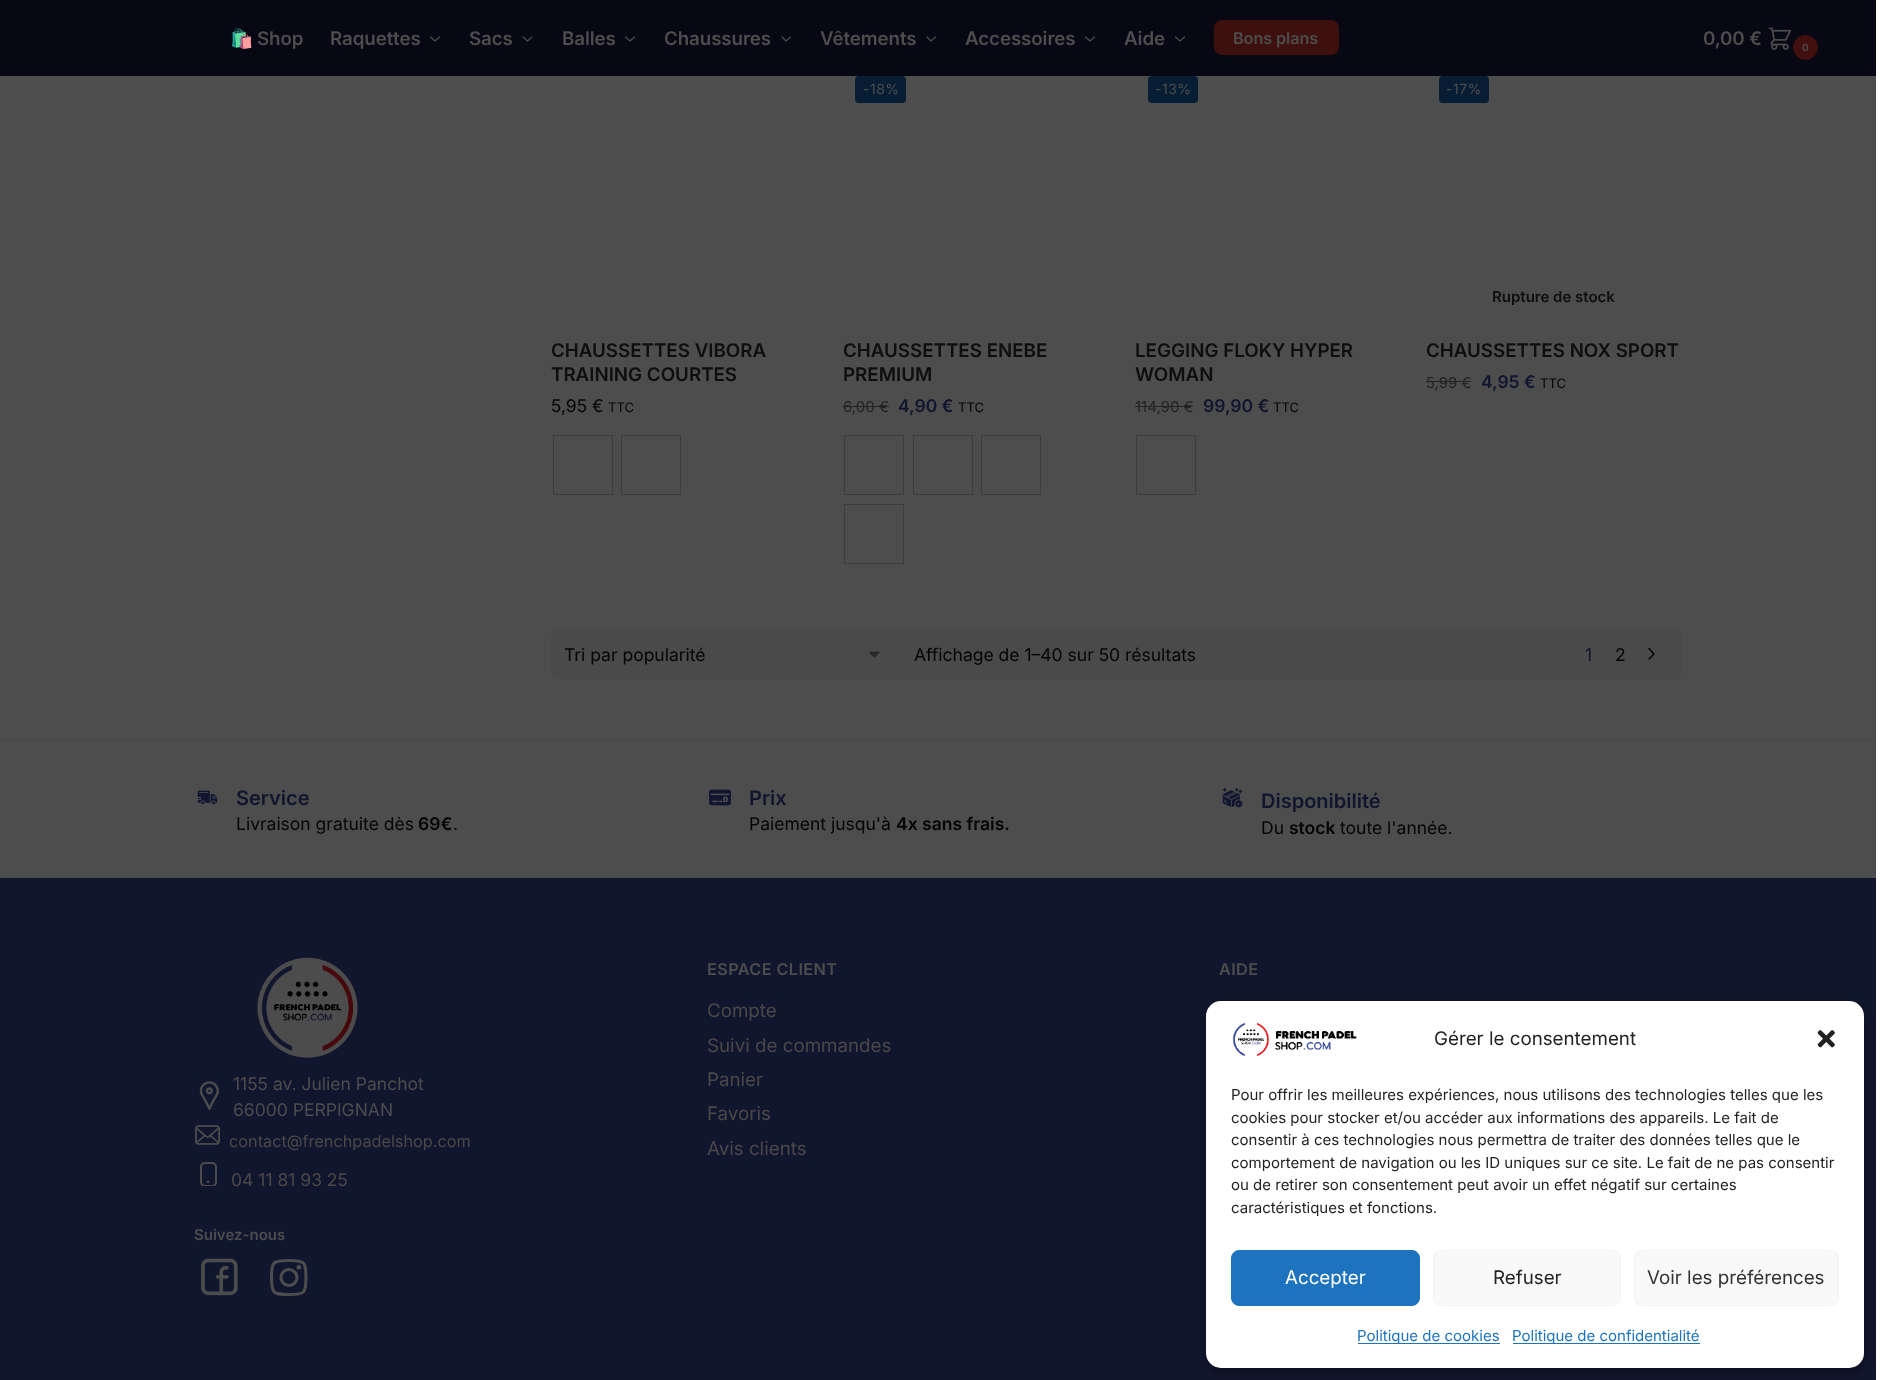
<svg xmlns="http://www.w3.org/2000/svg" width="1894" height="1380">
<rect width="100%" height="100%" fill="#fff"/>
<rect y="76" width="1876" height="802" fill="#4d4d4d"/>
<rect width="1876" height="76" fill="#070814"/>
<text x="230" y="45" style="font-family:Noto Color Emoji;font-size:18.75px;font-weight:bold;letter-spacing:-0.1px;fill:#4d4d4d">🛍️</text>
<text x="257" y="45" style="font-family:Inter;font-size:18.75px;font-weight:600;letter-spacing:-0.1px;fill:#4d4d4d">Shop</text>
<text x="330" y="45" style="font-family:Inter;font-size:18.75px;font-weight:600;letter-spacing:-0.1px;fill:#4d4d4d">Raquettes</text>
<path d="M439.5 37l-4.5 4l-4.5-4" fill="none" stroke="#4d4d4d" stroke-width="1.2" stroke-linecap="round" stroke-linejoin="round"/>
<text x="469" y="45" style="font-family:Inter;font-size:18.75px;font-weight:600;letter-spacing:-0.1px;fill:#4d4d4d">Sacs</text>
<path d="M532 37l-4.5 4l-4.5-4" fill="none" stroke="#4d4d4d" stroke-width="1.2" stroke-linecap="round" stroke-linejoin="round"/>
<text x="562" y="45" style="font-family:Inter;font-size:18.75px;font-weight:600;letter-spacing:-0.1px;fill:#4d4d4d">Balles</text>
<path d="M634.5 37l-4.5 4l-4.5-4" fill="none" stroke="#4d4d4d" stroke-width="1.2" stroke-linecap="round" stroke-linejoin="round"/>
<text x="664" y="45" style="font-family:Inter;font-size:18.75px;font-weight:600;letter-spacing:-0.1px;fill:#4d4d4d">Chaussures</text>
<path d="M790.5 37l-4.5 4l-4-4" fill="none" stroke="#4d4d4d" stroke-width="1.2" stroke-linecap="round" stroke-linejoin="round"/>
<text x="820" y="45" style="font-family:Inter;font-size:18.75px;font-weight:600;letter-spacing:-0.1px;fill:#4d4d4d">Vêtements</text>
<path d="M935.5 37l-4.5 4l-4-4" fill="none" stroke="#4d4d4d" stroke-width="1.2" stroke-linecap="round" stroke-linejoin="round"/>
<text x="965" y="45" style="font-family:Inter;font-size:18.75px;font-weight:600;letter-spacing:-0.1px;fill:#4d4d4d">Accessoires</text>
<path d="M1094.5 37l-4.5 4l-4.5-4" fill="none" stroke="#4d4d4d" stroke-width="1.2" stroke-linecap="round" stroke-linejoin="round"/>
<text x="1124" y="45" style="font-family:Inter;font-size:18.75px;font-weight:600;letter-spacing:-0.1px;fill:#4d4d4d">Aide</text>
<path d="M1184.5 37l-4.5 4l-4.5-4" fill="none" stroke="#4d4d4d" stroke-width="1.2" stroke-linecap="round" stroke-linejoin="round"/>
<rect x="1214" y="20" width="125" height="35" rx="8" fill="#3d0f0d"/>
<text x="1233" y="44" style="font-family:Inter;font-size:16.25px;font-weight:600;letter-spacing:-0.1px;fill:#4d4d4d">Bons plans</text>
<text x="1703" y="45" style="font-family:Inter;font-size:18.75px;font-weight:600;letter-spacing:-0.1px;fill:#4d4d4d">0,00 €</text>
<image x="1768" y="27" width="24" height="23" href="media/1.png"/>
<circle cx="1805.5" cy="47.5" r="12" fill="#420f0f" stroke="#420f0f"/>
<text x="1802" y="51" style="font-family:Inter;font-size:10px;font-weight:600;letter-spacing:-0.1px;fill:#4d4d4d">0</text>
<text x="551" y="357" style="font-family:Inter;font-size:18.75px;font-weight:600;fill:#0d0e0f">CHAUSSETTES VIBORA</text>
<text x="551" y="381" style="font-family:Inter;font-size:18.75px;font-weight:600;fill:#0d0e0f">TRAINING COURTES</text>
<text x="551" y="412" style="font-family:Inter;font-size:17.5px;fill:#050505">5,95 €</text>
<text x="608" y="412" style="font-family:Inter;font-size:13px;fill:#050505">TTC</text>
<rect x="553.5" y="435.5" width="59" height="59" fill="none" stroke="#3d3d3d"/>
<rect x="621.5" y="435.5" width="59" height="59" fill="none" stroke="#3d3d3d"/>
<rect x="855" y="76" width="51" height="27" rx="4" fill="#071d33"/>
<text x="863" y="94" style="font-family:Inter;font-size:14px;letter-spacing:0.5px;fill:#4d4d4d">-18%</text>
<text x="843" y="357" style="font-family:Inter;font-size:18.75px;font-weight:600;fill:#0d0e0f">CHAUSSETTES ENEBE</text>
<text x="843" y="381" style="font-family:Inter;font-size:18.75px;font-weight:600;fill:#0d0e0f">PREMIUM</text>
<text x="843" y="412" style="font-family:Inter;font-size:15px;fill:#222325">6,00 €</text>
<rect x="843" y="406" width="46" height="1" fill="#222325"/>
<text x="898" y="412" style="font-family:Inter;font-size:17.5px;font-weight:600;fill:#11162f">4,90 €</text>
<text x="958" y="412" style="font-family:Inter;font-size:13px;fill:#050505">TTC</text>
<rect x="844.5" y="435.5" width="59" height="59" fill="none" stroke="#3d3d3d"/>
<rect x="913.5" y="435.5" width="59" height="59" fill="none" stroke="#3d3d3d"/>
<rect x="981.5" y="435.5" width="59" height="59" fill="none" stroke="#3d3d3d"/>
<rect x="844.5" y="504.5" width="59" height="59" fill="none" stroke="#3d3d3d"/>
<rect x="1148" y="76" width="50" height="27" rx="4" fill="#071d33"/>
<text x="1155" y="94" style="font-family:Inter;font-size:14px;letter-spacing:0.5px;fill:#4d4d4d">-13%</text>
<text x="1135" y="357" style="font-family:Inter;font-size:18.75px;font-weight:600;fill:#0d0e0f">LEGGING FLOKY HYPER</text>
<text x="1135" y="381" style="font-family:Inter;font-size:18.75px;font-weight:600;fill:#0d0e0f">WOMAN</text>
<text x="1135" y="412" style="font-family:Inter;font-size:15px;fill:#222325">114,90 €</text>
<rect x="1135" y="406" width="58" height="1" fill="#222325"/>
<text x="1203" y="412" style="font-family:Inter;font-size:17.5px;font-weight:600;fill:#11162f">99,90 €</text>
<text x="1273" y="412" style="font-family:Inter;font-size:13px;fill:#050505">TTC</text>
<rect x="1136.5" y="435.5" width="59" height="59" fill="none" stroke="#3d3d3d"/>
<rect x="1439" y="76" width="50" height="27" rx="4" fill="#071d33"/>
<text x="1446" y="94" style="font-family:Inter;font-size:14px;letter-spacing:0.5px;fill:#4d4d4d">-17%</text>
<text x="1492" y="302" style="font-family:Inter;font-size:15px;font-weight:600;fill:#0d0e0f">Rupture de stock</text>
<text x="1426" y="357" style="font-family:Inter;font-size:18.75px;font-weight:600;fill:#0d0e0f">CHAUSSETTES NOX SPORT</text>
<text x="1426" y="388" style="font-family:Inter;font-size:15px;fill:#222325">5,99 €</text>
<rect x="1426" y="381" width="45" height="1" fill="#222325"/>
<text x="1481" y="388" style="font-family:Inter;font-size:17.5px;font-weight:600;fill:#11162f">4,95 €</text>
<text x="1540" y="388" style="font-family:Inter;font-size:13px;fill:#050505">TTC</text>
<rect x="551" y="629" width="1132" height="51" rx="10" fill="#4a4a4a"/>
<image x="869" y="651" width="11" height="7" href="media/2.png"/>
<text x="564" y="661" style="font-family:Inter;font-size:17.5px;fill:#050505">Tri par popularité</text>
<text x="914" y="661" style="font-family:Inter;font-size:17.5px;fill:#050505">Affichage de 1–40 sur 50 résultats</text>
<text x="1585" y="661" style="font-family:Inter;font-size:17.5px;fill:#11162f">1</text>
<text x="1615" y="661" style="font-family:Inter;font-size:17.5px;fill:#050505">2</text>
<path d="M1649 648.5l5 5.5l-5 5" fill="none" stroke="#050505" stroke-width="1.5" stroke-linecap="round" stroke-linejoin="round"/>
<rect y="740" width="1876" height="1" fill="#474747"/>
<image x="197" y="790" width="21" height="15" href="media/3.png"/>
<text x="236" y="805" style="font-family:Inter;font-size:20px;font-weight:600;fill:#11162f">Service</text>
<text x="236" y="830" style="font-family:Inter;font-size:17.5px;fill:#050505">Livraison gratuite dès</text>
<text x="418" y="830" style="font-family:Inter;font-size:17.5px;font-weight:600;fill:#050505">69€</text>
<text x="453" y="830" style="font-family:Inter;font-size:17.5px;fill:#050505">.</text>
<image x="709" y="789" width="22" height="17" href="media/4.png"/>
<text x="749" y="805" style="font-family:Inter;font-size:20px;font-weight:600;fill:#11162f">Prix</text>
<text x="749" y="830" style="font-family:Inter;font-size:17.5px;fill:#050505">Paiement jusqu'à</text>
<text x="896" y="830" style="font-family:Inter;font-size:17.5px;font-weight:600;fill:#050505">4x sans frais.</text>
<image x="1222" y="787" width="21" height="21" href="media/5.png"/>
<text x="1261" y="808" style="font-family:Inter;font-size:20px;font-weight:600;fill:#11162f">Disponibilité</text>
<text x="1261" y="834" style="font-family:Inter;font-size:17.5px;fill:#050505">Du</text>
<text x="1289" y="834" style="font-family:Inter;font-size:17.5px;font-weight:600;fill:#050505">stock</text>
<text x="1340" y="834" style="font-family:Inter;font-size:17.5px;fill:#050505">toute l'année.</text>
<rect y="878" width="1876" height="502" fill="#11162f"/>
<text x="707" y="975" style="font-family:Inter;font-size:16.25px;font-weight:600;letter-spacing:0.4px;fill:#4d4d4d">ESPACE CLIENT</text>
<text x="707" y="1017" style="font-family:Inter;font-size:18.75px;fill:#4b4847">Compte</text>
<text x="707" y="1052" style="font-family:Inter;font-size:18.75px;fill:#4b4847">Suivi de commandes</text>
<text x="707" y="1086" style="font-family:Inter;font-size:18.75px;fill:#4b4847">Panier</text>
<text x="707" y="1120" style="font-family:Inter;font-size:18.75px;fill:#4b4847">Favoris</text>
<text x="707" y="1155" style="font-family:Inter;font-size:18.75px;fill:#4b4847">Avis clients</text>
<text x="1219" y="975" style="font-family:Inter;font-size:16.25px;font-weight:600;letter-spacing:0.4px;fill:#4d4d4d">AIDE</text>
<image x="257" y="957" width="101" height="101" href="media/6.png"/>
<image x="199" y="1081" width="20" height="29" href="media/7.png"/>
<text x="233" y="1090" style="font-family:Inter;font-size:17.5px;fill:#4d4d4d">1155 av. Julien Panchot</text>
<text x="233" y="1116" style="font-family:Inter;font-size:17.5px;fill:#4d4d4d">66000 PERPIGNAN</text>
<image x="195" y="1125" width="25" height="20" href="media/8.png"/>
<text x="229" y="1147" style="font-family:Inter;font-size:16.25px;fill:#4b4847">contact@frenchpadelshop.com</text>
<image x="200" y="1162" width="17" height="24" href="media/9.png"/>
<text x="231" y="1186" style="font-family:Inter;font-size:17.5px;fill:#4b4847">04 11 81 93 25</text>
<text x="194" y="1240" style="font-family:Inter;font-size:15px;font-weight:600;fill:#4d4d4d">Suivez-nous</text>
<image x="201" y="1258" width="37" height="38" href="media/10.png"/>
<path d="M289 1294.5c-16 0-17.5-1-17.5-17c0-16 1.5-17 17.5-17c15.5 0 17 1 17 17c0 16-1.5 17-17 17z" fill="none" stroke="#4d4d4d" stroke-width="3.1"/>
<circle cx="289" cy="1277.5" r="8" fill="none" stroke="#4d4d4d" stroke-width="3.1"/>
<circle cx="298.9" cy="1267.3" r="2.3" fill="#4d4d4d" stroke="#4d4d4d" stroke-width="0.3"/>
<rect x="1206" y="1009" width="658" height="366" rx="15" fill="#0000003b" filter="blur(4px)"/>
<rect x="1206" y="1001" width="658" height="367" rx="15" fill="#fff"/>
<image x="1232" y="1022" width="125" height="34" href="media/11.png"/>
<text x="1434" y="1045" style="font-family:Inter;font-size:18.75px;fill:#222325">Gérer le consentement</text>
<image x="1817" y="1030" width="18" height="18" href="media/12.png"/>
<text x="1231" y="1100" style="font-family:Inter;font-size:15px;fill:#222325">Pour offrir les meilleures expériences, nous utilisons des technologies telles que les</text>
<text x="1231" y="1123" style="font-family:Inter;font-size:15px;fill:#222325">cookies pour stocker et/ou accéder aux informations des appareils. Le fait de</text>
<text x="1231" y="1145" style="font-family:Inter;font-size:15px;fill:#222325">consentir à ces technologies nous permettra de traiter des données telles que le</text>
<text x="1231" y="1168" style="font-family:Inter;font-size:15px;fill:#222325">comportement de navigation ou les ID uniques sur ce site. Le fait de ne pas consentir</text>
<text x="1231" y="1190" style="font-family:Inter;font-size:15px;fill:#222325">ou de retirer son consentement peut avoir un effet négatif sur certaines</text>
<text x="1231" y="1213" style="font-family:Inter;font-size:15px;fill:#222325">caractéristiques et fonctions.</text>
<rect x="1231.5" y="1250.5" width="188" height="55" rx="7.5" fill="#1e73be" stroke="#1e73be"/>
<text x="1285" y="1284" style="font-family:Inter;font-size:18.75px;fill:#fff">Accepter</text>
<rect x="1433.5" y="1250.5" width="187" height="55" rx="7.5" fill="#f9f9f9" stroke="#f2f2f2"/>
<text x="1493" y="1284" style="font-family:Inter;font-size:18.75px;fill:#222325">Refuser</text>
<rect x="1634.5" y="1250.5" width="204" height="55" rx="7.5" fill="#f9f9f9" stroke="#f2f2f2"/>
<text x="1647" y="1284" style="font-family:Inter;font-size:18.75px;fill:#333">Voir les préférences</text>
<rect x="1358" y="1343" width="142" height="1" fill="#1e73be"/>
<text x="1357" y="1341" style="font-family:Inter;font-size:15px;fill:#1e73be">Politique de cookies</text>
<rect x="1513" y="1343" width="187" height="1" fill="#1e73be"/>
<text x="1512" y="1341" style="font-family:Inter;font-size:15px;fill:#1e73be">Politique de confidentialité</text>
</svg>
